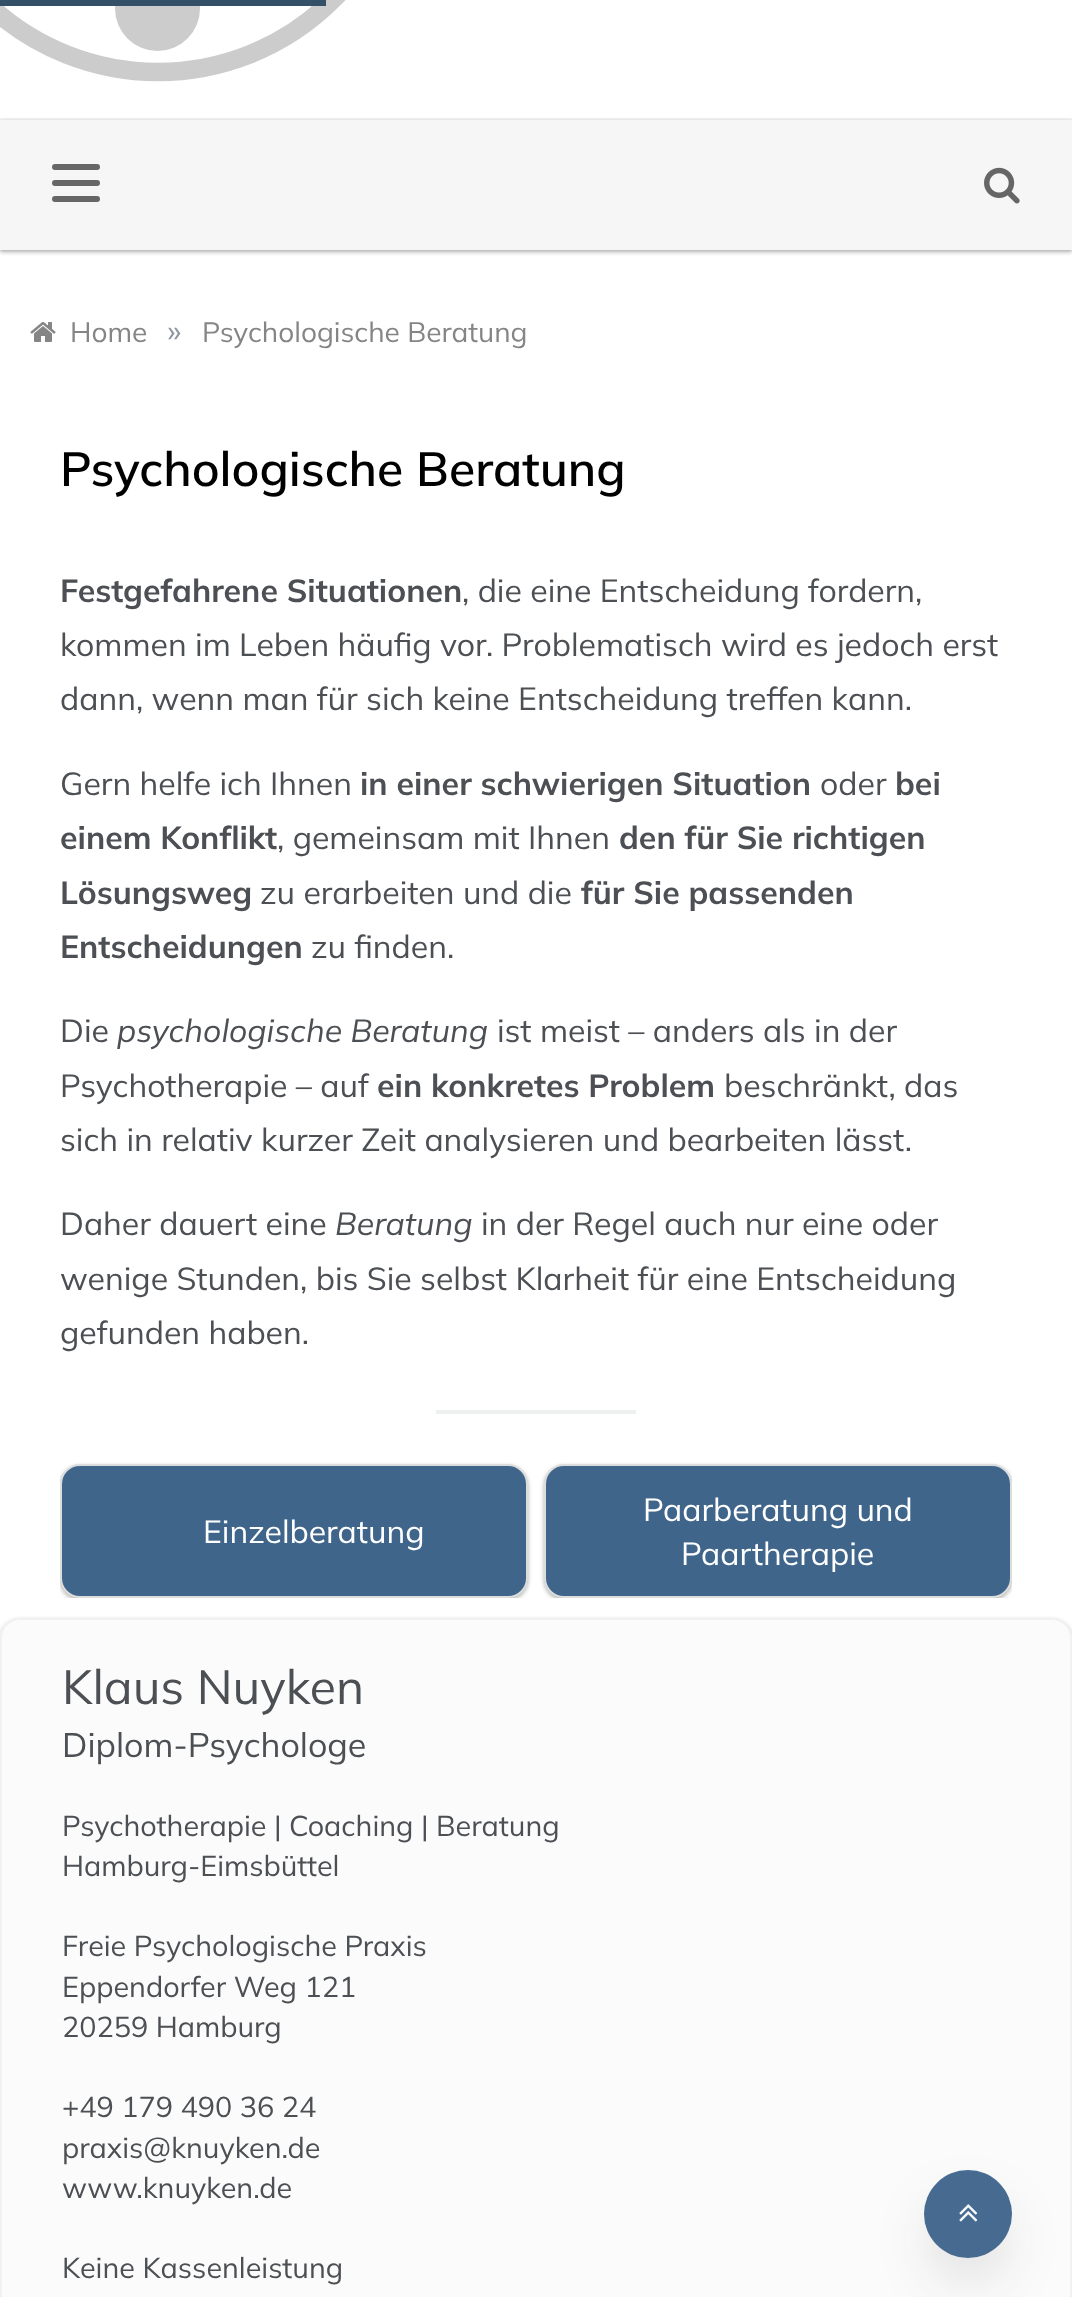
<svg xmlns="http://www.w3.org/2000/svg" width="1072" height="2297">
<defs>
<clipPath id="clip1"><rect x="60" y="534" width="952" height="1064"/></clipPath>
<clipPath id="clip2"><path d="M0 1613h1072v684h-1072zm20 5h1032c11 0 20 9 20 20v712c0 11-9 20-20 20h-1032c-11 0-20-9-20-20v-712c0-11 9-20 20-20z" clip-rule="evenodd"/></clipPath>
</defs>
<rect width="100%" height="100%" fill="#fff"/>
<circle cx="157.5" cy="8.5" r="42.5" fill="#ccc"/>
<circle cx="158" cy="-175.5" r="247.5" fill="none" stroke="#ccc" stroke-width="18.7"/>
<rect width="326" height="6" fill="#345068"/>
<rect y="250" width="1072" height="2" fill="#fafafa"/>
<rect y="118" width="1072" height="2" fill="#f2f2f2"/>
<rect y="122" width="1072" height="130" fill="#0000004d" filter="blur(2px)"/>
<rect y="120" width="1072" height="130" fill="#f6f6f6"/>
<rect x="52" y="164" width="48" height="6" rx="3" fill="#666"/>
<rect x="52" y="180" width="48" height="6" rx="3" fill="#666"/>
<rect x="52" y="196" width="48" height="6" rx="3" fill="#666"/>
<image x="984" y="167" width="36" height="37" href="media/1.png"/>
<image x="30" y="322" width="26" height="20" href="media/2.png"/>
<text x="70" y="342" style="font-family:Mulish;font-size:28px;font-weight:200;fill:#858585">Home</text>
<text x="167" y="342" style="font-family:Mulish;font-size:32px;font-weight:200;fill:#8d97a1">»</text>
<text x="202" y="342" style="font-family:Mulish;font-size:28px;font-weight:200;fill:#858585">Psychologische Beratung</text>
<text x="60" y="486" style="font-family:'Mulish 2';font-size:48px;font-weight:200;fill:#000">Psychologische Beratung</text>
<text x="60" y="602" style="font-family:'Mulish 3';font-size:32px;font-weight:200;fill:#4c4f53">Festgefahrene Situationen</text>
<text x="462" y="602" style="font-family:Mulish;font-size:32px;font-weight:200;fill:#4c4f53">, die eine Entscheidung fordern,</text>
<text x="60" y="656" style="font-family:Mulish;font-size:32px;font-weight:200;fill:#4c4f53">kommen im Leben häufig vor. Problematisch wird es jedoch erst</text>
<text x="60" y="710" style="font-family:Mulish;font-size:32px;font-weight:200;fill:#4c4f53">dann, wenn man für sich keine Entscheidung treffen kann.</text>
<text x="60" y="795" style="font-family:Mulish;font-size:32px;font-weight:200;fill:#4c4f53">Gern helfe ich Ihnen</text>
<text x="360" y="795" style="font-family:'Mulish 3';font-size:32px;font-weight:200;fill:#4c4f53">in einer schwierigen Situation</text>
<text x="820" y="795" style="font-family:Mulish;font-size:32px;font-weight:200;fill:#4c4f53">oder</text>
<text x="895" y="795" style="font-family:'Mulish 3';font-size:32px;font-weight:200;fill:#4c4f53">bei</text>
<text x="60" y="849" style="font-family:'Mulish 3';font-size:32px;font-weight:200;fill:#4c4f53">einem Konflikt</text>
<text x="277" y="849" style="font-family:Mulish;font-size:32px;font-weight:200;fill:#4c4f53">, gemeinsam mit Ihnen</text>
<text x="619" y="849" style="font-family:'Mulish 3';font-size:32px;font-weight:200;fill:#4c4f53">den für Sie richtigen</text>
<text x="60" y="904" style="font-family:'Mulish 3';font-size:32px;font-weight:200;fill:#4c4f53">Lösungsweg</text>
<text x="260" y="904" style="font-family:Mulish;font-size:32px;font-weight:200;fill:#4c4f53">zu erarbeiten und die</text>
<text x="581" y="904" style="font-family:'Mulish 3';font-size:32px;font-weight:200;fill:#4c4f53">für Sie passenden</text>
<text x="60" y="958" style="font-family:'Mulish 3';font-size:32px;font-weight:200;fill:#4c4f53">Entscheidungen</text>
<text x="311" y="958" style="font-family:Mulish;font-size:32px;font-weight:200;fill:#4c4f53">zu finden.</text>
<text x="60" y="1042" style="font-family:Mulish;font-size:32px;font-weight:200;fill:#4c4f53">Die</text>
<text x="117" y="1042" style="font-family:Mulish;font-size:32px;font-weight:200;font-style:italic;fill:#4c4f53">psychologische Beratung</text>
<text x="497" y="1042" style="font-family:Mulish;font-size:32px;font-weight:200;fill:#4c4f53">ist meist – anders als in der</text>
<text x="60" y="1097" style="font-family:Mulish;font-size:32px;font-weight:200;fill:#4c4f53">Psychotherapie – auf</text>
<text x="377" y="1097" style="font-family:'Mulish 3';font-size:32px;font-weight:200;fill:#4c4f53">ein konkretes Problem</text>
<text x="724" y="1097" style="font-family:Mulish;font-size:32px;font-weight:200;fill:#4c4f53">beschränkt, das</text>
<text x="60" y="1151" style="font-family:Mulish;font-size:32px;font-weight:200;fill:#4c4f53">sich in relativ kurzer Zeit analysieren und bearbeiten lässt.</text>
<text x="60" y="1235" style="font-family:Mulish;font-size:32px;font-weight:200;fill:#4c4f53">Daher dauert eine</text>
<text x="335" y="1235" style="font-family:Mulish;font-size:32px;font-weight:200;font-style:italic;fill:#4c4f53">Beratung</text>
<text x="481" y="1235" style="font-family:Mulish;font-size:32px;font-weight:200;fill:#4c4f53">in der Regel auch nur eine oder</text>
<text x="60" y="1290" style="font-family:Mulish;font-size:32px;font-weight:200;fill:#4c4f53">wenige Stunden, bis Sie selbst Klarheit für eine Entscheidung</text>
<text x="60" y="1344" style="font-family:Mulish;font-size:32px;font-weight:200;fill:#4c4f53">gefunden haben.</text>
<rect x="436" y="1410" width="200" height="4" fill="#eeefef"/>
<g clip-path="url(#clip1)">
<rect x="60" y="1466" width="468" height="134" rx="20" fill="#0000004d" filter="blur(2px)"/>
</g>
<rect x="61" y="1465" width="466" height="132" rx="19" fill="#3f658b" stroke="#ddd" stroke-width="2"/>
<text x="203" y="1543" style="font-family:Mulish;font-size:32px;font-weight:200;fill:#fff">Einzelberatung</text>
<g clip-path="url(#clip1)">
<rect x="544" y="1466" width="468" height="134" rx="20" fill="#0000004d" filter="blur(2px)"/>
</g>
<rect x="545" y="1465" width="466" height="132" rx="19" fill="#3f658b" stroke="#ddd" stroke-width="2"/>
<text x="643" y="1521" style="font-family:Mulish;font-size:32px;font-weight:200;fill:#fff">Paarberatung und</text>
<text x="681" y="1565" style="font-family:Mulish;font-size:32px;font-weight:200;fill:#fff">Paartherapie</text>
<g clip-path="url(#clip2)">
<rect y="1620" width="1072" height="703" rx="20" fill="#0000004d" filter="blur(2px)"/>
</g>
<rect x="1" y="1619" width="1070" height="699" rx="19" fill="#efefef47" stroke="#f1f1f1" stroke-width="2"/>
<text x="62" y="1704" style="font-family:Mulish;font-size:48px;font-weight:200;fill:#4c4f53">Klaus Nuyken</text>
<text x="62" y="1757" style="font-family:Mulish;font-size:34px;font-weight:200;fill:#4c4f53">Diplom-Psychologe</text>
<text x="62" y="1836" style="font-family:Mulish;font-size:28.75px;font-weight:200;fill:#4c4f53">Psychotherapie | Coaching | Beratung</text>
<text x="62" y="1876" style="font-family:Mulish;font-size:28.75px;font-weight:200;fill:#4c4f53">Hamburg-Eimsbüttel</text>
<text x="62" y="1956" style="font-family:Mulish;font-size:28.75px;font-weight:200;fill:#4c4f53">Freie Psychologische Praxis</text>
<text x="62" y="1997" style="font-family:Mulish;font-size:28.75px;font-weight:200;fill:#4c4f53">Eppendorfer Weg 121</text>
<text x="62" y="2037" style="font-family:Mulish;font-size:28.75px;font-weight:200;fill:#4c4f53">20259 Hamburg</text>
<text x="62" y="2117" style="font-family:Mulish;font-size:28.75px;font-weight:200;fill:#4c4f53">+49 179 490 36 24</text>
<text x="62" y="2158" style="font-family:Mulish;font-size:28.75px;font-weight:200;fill:#4c4f53">praxis@knuyken.de</text>
<text x="62" y="2198" style="font-family:Mulish;font-size:28.75px;font-weight:200;fill:#4c4f53">www.knuyken.de</text>
<text x="62" y="2278" style="font-family:Mulish;font-size:28.75px;font-weight:200;fill:#4c4f53">Keine Kassenleistung</text>
<rect x="932" y="2206" width="72" height="72" rx="36" fill="#181b1e26" filter="blur(28px)"/>
<circle cx="968" cy="2214" r="44" fill="#476b90"/>
<image x="959" y="2204" width="19" height="18" href="media/3.png"/>
</svg>
